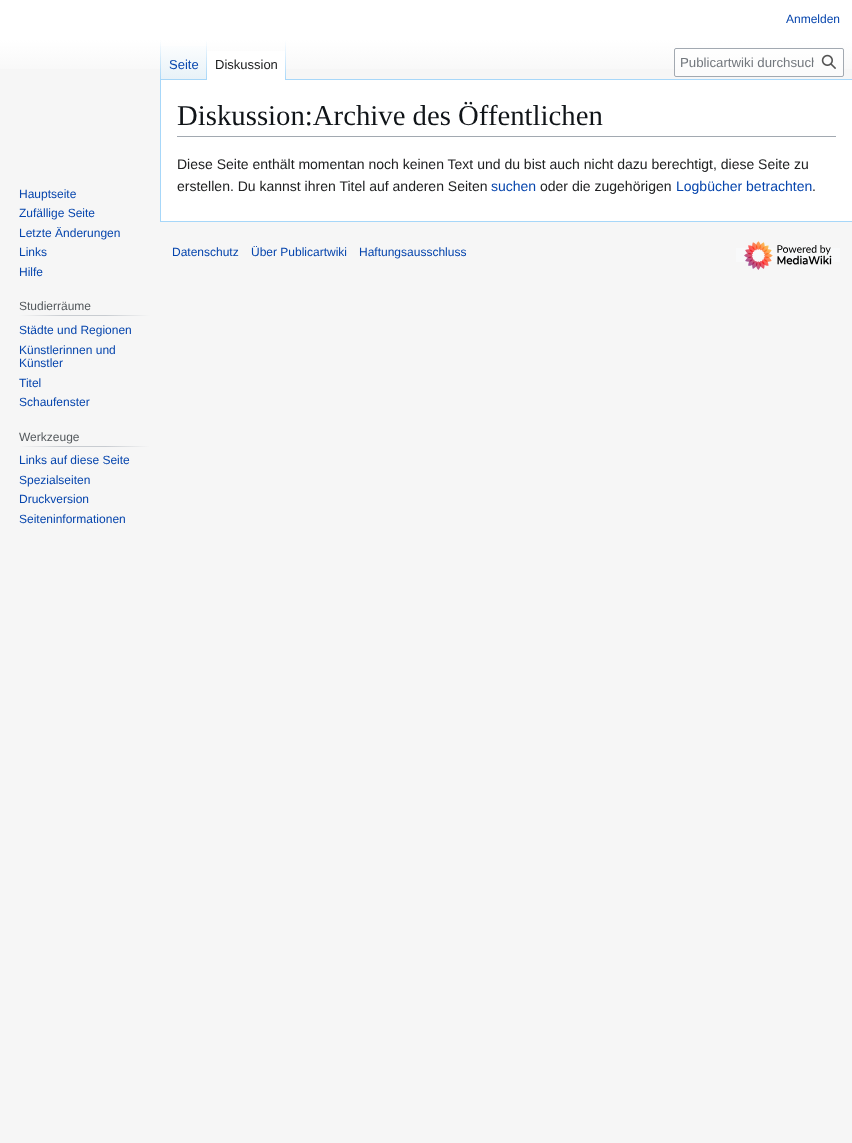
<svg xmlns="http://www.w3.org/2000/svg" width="852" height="1143">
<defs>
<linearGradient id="g1" gradientUnits="userSpaceOnUse" x1="426" y1="0" x2="426" y2="80"><stop offset="0.5" stop-color="#fff"/><stop offset="1" stop-color="#f6f6f6"/></linearGradient>
<linearGradient id="g2" gradientUnits="userSpaceOnUse" x1="161" y1="40" x2="161" y2="80"><stop offset="0" stop-color="#a7d7f9" stop-opacity="0"/><stop offset="1" stop-color="#a7d7f9"/></linearGradient>
<linearGradient id="g3" gradientUnits="userSpaceOnUse" x1="184" y1="80" x2="184" y2="40"><stop offset="0" stop-color="#77c1f6"/><stop offset="0.03" stop-color="#e8f2f8"/><stop offset="1" stop-color="#fff"/></linearGradient>
<linearGradient id="g4" gradientUnits="userSpaceOnUse" x1="207" y1="40" x2="207" y2="80"><stop offset="0" stop-color="#a7d7f9" stop-opacity="0"/><stop offset="1" stop-color="#a7d7f9"/></linearGradient>
<linearGradient id="g5" gradientUnits="userSpaceOnUse" x1="286" y1="40" x2="286" y2="80"><stop offset="0" stop-color="#fff"/><stop offset="1" stop-color="#a7d7f9"/></linearGradient>
<clipPath id="clip1"><rect x="680" y="55" width="134" height="15"/></clipPath>
<linearGradient id="g6" gradientUnits="userSpaceOnUse" x1="19" y1="316" x2="150" y2="316"><stop offset="0" stop-color="#f6f6f6"/><stop offset="0.33" stop-color="#c8ccd1"/><stop offset="0.66" stop-color="#c8ccd1"/><stop offset="1" stop-color="#f6f6f6"/></linearGradient>
<linearGradient id="g7" gradientUnits="userSpaceOnUse" x1="19" y1="447" x2="150" y2="447"><stop offset="0" stop-color="#f6f6f6"/><stop offset="0.33" stop-color="#c8ccd1"/><stop offset="0.66" stop-color="#c8ccd1"/><stop offset="1" stop-color="#f6f6f6"/></linearGradient>
</defs>
<rect width="100%" height="100%" fill="#f6f6f6"/>
<rect width="852" height="69" fill="url(#g1)"/>
<text x="786" y="23" style="font-family:Liberation Sans;font-size:12px;fill:#0645ad">Anmelden</text>
<rect x="160" y="221" width="692" height="1" fill="#a7d7f9"/>
<rect x="160" y="79" width="1" height="143" fill="#a7d7f9"/>
<rect x="160" y="40" width="1" height="40" fill="url(#g2)"/>
<rect x="161" y="46" width="46" height="34" fill="url(#g3)"/>
<rect x="206" y="40" width="1" height="40" fill="url(#g4)"/>
<text x="169" y="69" style="font-family:Liberation Sans;font-size:13px;fill:#0645ad">Seite</text>
<rect x="207" y="51" width="78" height="29" fill="#fff"/>
<rect x="285" y="40" width="1" height="40" fill="url(#g5)"/>
<text x="215" y="69" style="font-family:Liberation Sans;font-size:13px;fill:#202122">Diskussion</text>
<rect x="674.5" y="48.5" width="169" height="28" rx="1.5" fill="#ffffff80" stroke="#a2a9b1"/>
<g clip-path="url(#clip1)">
<text x="680" y="67" style="font-family:Liberation Sans;font-size:13.25px;fill:#72777d">Publicartwiki durchsuch</text>
</g>
<image x="821" y="54" width="15" height="15" href="media/1.png"/>
<text x="19" y="198" style="font-family:Liberation Sans;font-size:12px;fill:#0645ad">Hauptseite</text>
<text x="19" y="217" style="font-family:Liberation Sans;font-size:12px;fill:#0645ad">Zufällige Seite</text>
<text x="19" y="237" style="font-family:Liberation Sans;font-size:12px;fill:#0645ad">Letzte Änderungen</text>
<text x="19" y="256" style="font-family:Liberation Sans;font-size:12px;fill:#0645ad">Links</text>
<text x="19" y="276" style="font-family:Liberation Sans;font-size:12px;fill:#0645ad">Hilfe</text>
<rect x="19" y="315" width="131" height="1" fill="url(#g6)"/>
<text x="19" y="310" style="font-family:Liberation Sans;font-size:12px;fill:#54595d">Studierräume</text>
<text x="19" y="334" style="font-family:Liberation Sans;font-size:12px;fill:#0645ad">Städte und Regionen</text>
<text x="19" y="354" style="font-family:Liberation Sans;font-size:12px;fill:#0645ad">Künstlerinnen und</text>
<text x="19" y="367" style="font-family:Liberation Sans;font-size:12px;fill:#0645ad">Künstler</text>
<text x="19" y="387" style="font-family:Liberation Sans;font-size:12px;fill:#0645ad">Titel</text>
<text x="19" y="406" style="font-family:Liberation Sans;font-size:12px;fill:#0645ad">Schaufenster</text>
<rect x="19" y="446" width="131" height="1" fill="url(#g7)"/>
<text x="19" y="441" style="font-family:Liberation Sans;font-size:12px;fill:#54595d">Werkzeuge</text>
<text x="19" y="464" style="font-family:Liberation Sans;font-size:12px;fill:#0645ad">Links auf diese Seite</text>
<text x="19" y="484" style="font-family:Liberation Sans;font-size:12px;fill:#0645ad">Spezialseiten</text>
<text x="19" y="503" style="font-family:Liberation Sans;font-size:12px;fill:#0645ad">Druckversion</text>
<text x="19" y="523" style="font-family:Liberation Sans;font-size:12px;fill:#0645ad">Seiteninformationen</text>
<rect x="161" y="80" width="691" height="141" fill="#fff"/>
<rect x="286" y="79" width="566" height="1" fill="#a7d7f9"/>
<rect x="177" y="136" width="659" height="1" fill="#a2a9b1"/>
<text x="177" y="125" style="font-family:Liberation Serif;font-size:28.75px;fill:#101418">Diskussion:Archive des Öffentlichen</text>
<text x="177" y="169" style="font-family:Liberation Sans;font-size:14px;fill:#202122">Diese Seite enthält momentan noch keinen Text und du bist auch nicht dazu berechtigt, diese Seite zu</text>
<text x="177" y="191" style="font-family:Liberation Sans;font-size:14px;fill:#202122">erstellen. Du kannst ihren Titel auf anderen Seiten</text>
<text x="491" y="191" style="font-family:Liberation Sans;font-size:14px;fill:#0645ad">suchen</text>
<text x="540" y="191" style="font-family:Liberation Sans;font-size:14px;fill:#202122">oder die zugehörigen</text>
<text x="676" y="191" style="font-family:Liberation Sans;font-size:14px;fill:#0645ad">Logbücher betrachten</text>
<text x="812" y="191" style="font-family:Liberation Sans;font-size:14px;fill:#202122">.</text>
<text x="172" y="256" style="font-family:Liberation Sans;font-size:12px;fill:#0645ad">Datenschutz</text>
<text x="251" y="256" style="font-family:Liberation Sans;font-size:12px;fill:#0645ad">Über Publicartwiki</text>
<text x="359" y="256" style="font-family:Liberation Sans;font-size:12px;fill:#0645ad">Haftungsausschluss</text>
<rect x="736" y="248" width="104" height="14" fill="#f8f9fa"/>
<image x="744" y="241" width="88" height="29" href="media/2.png"/>
</svg>
